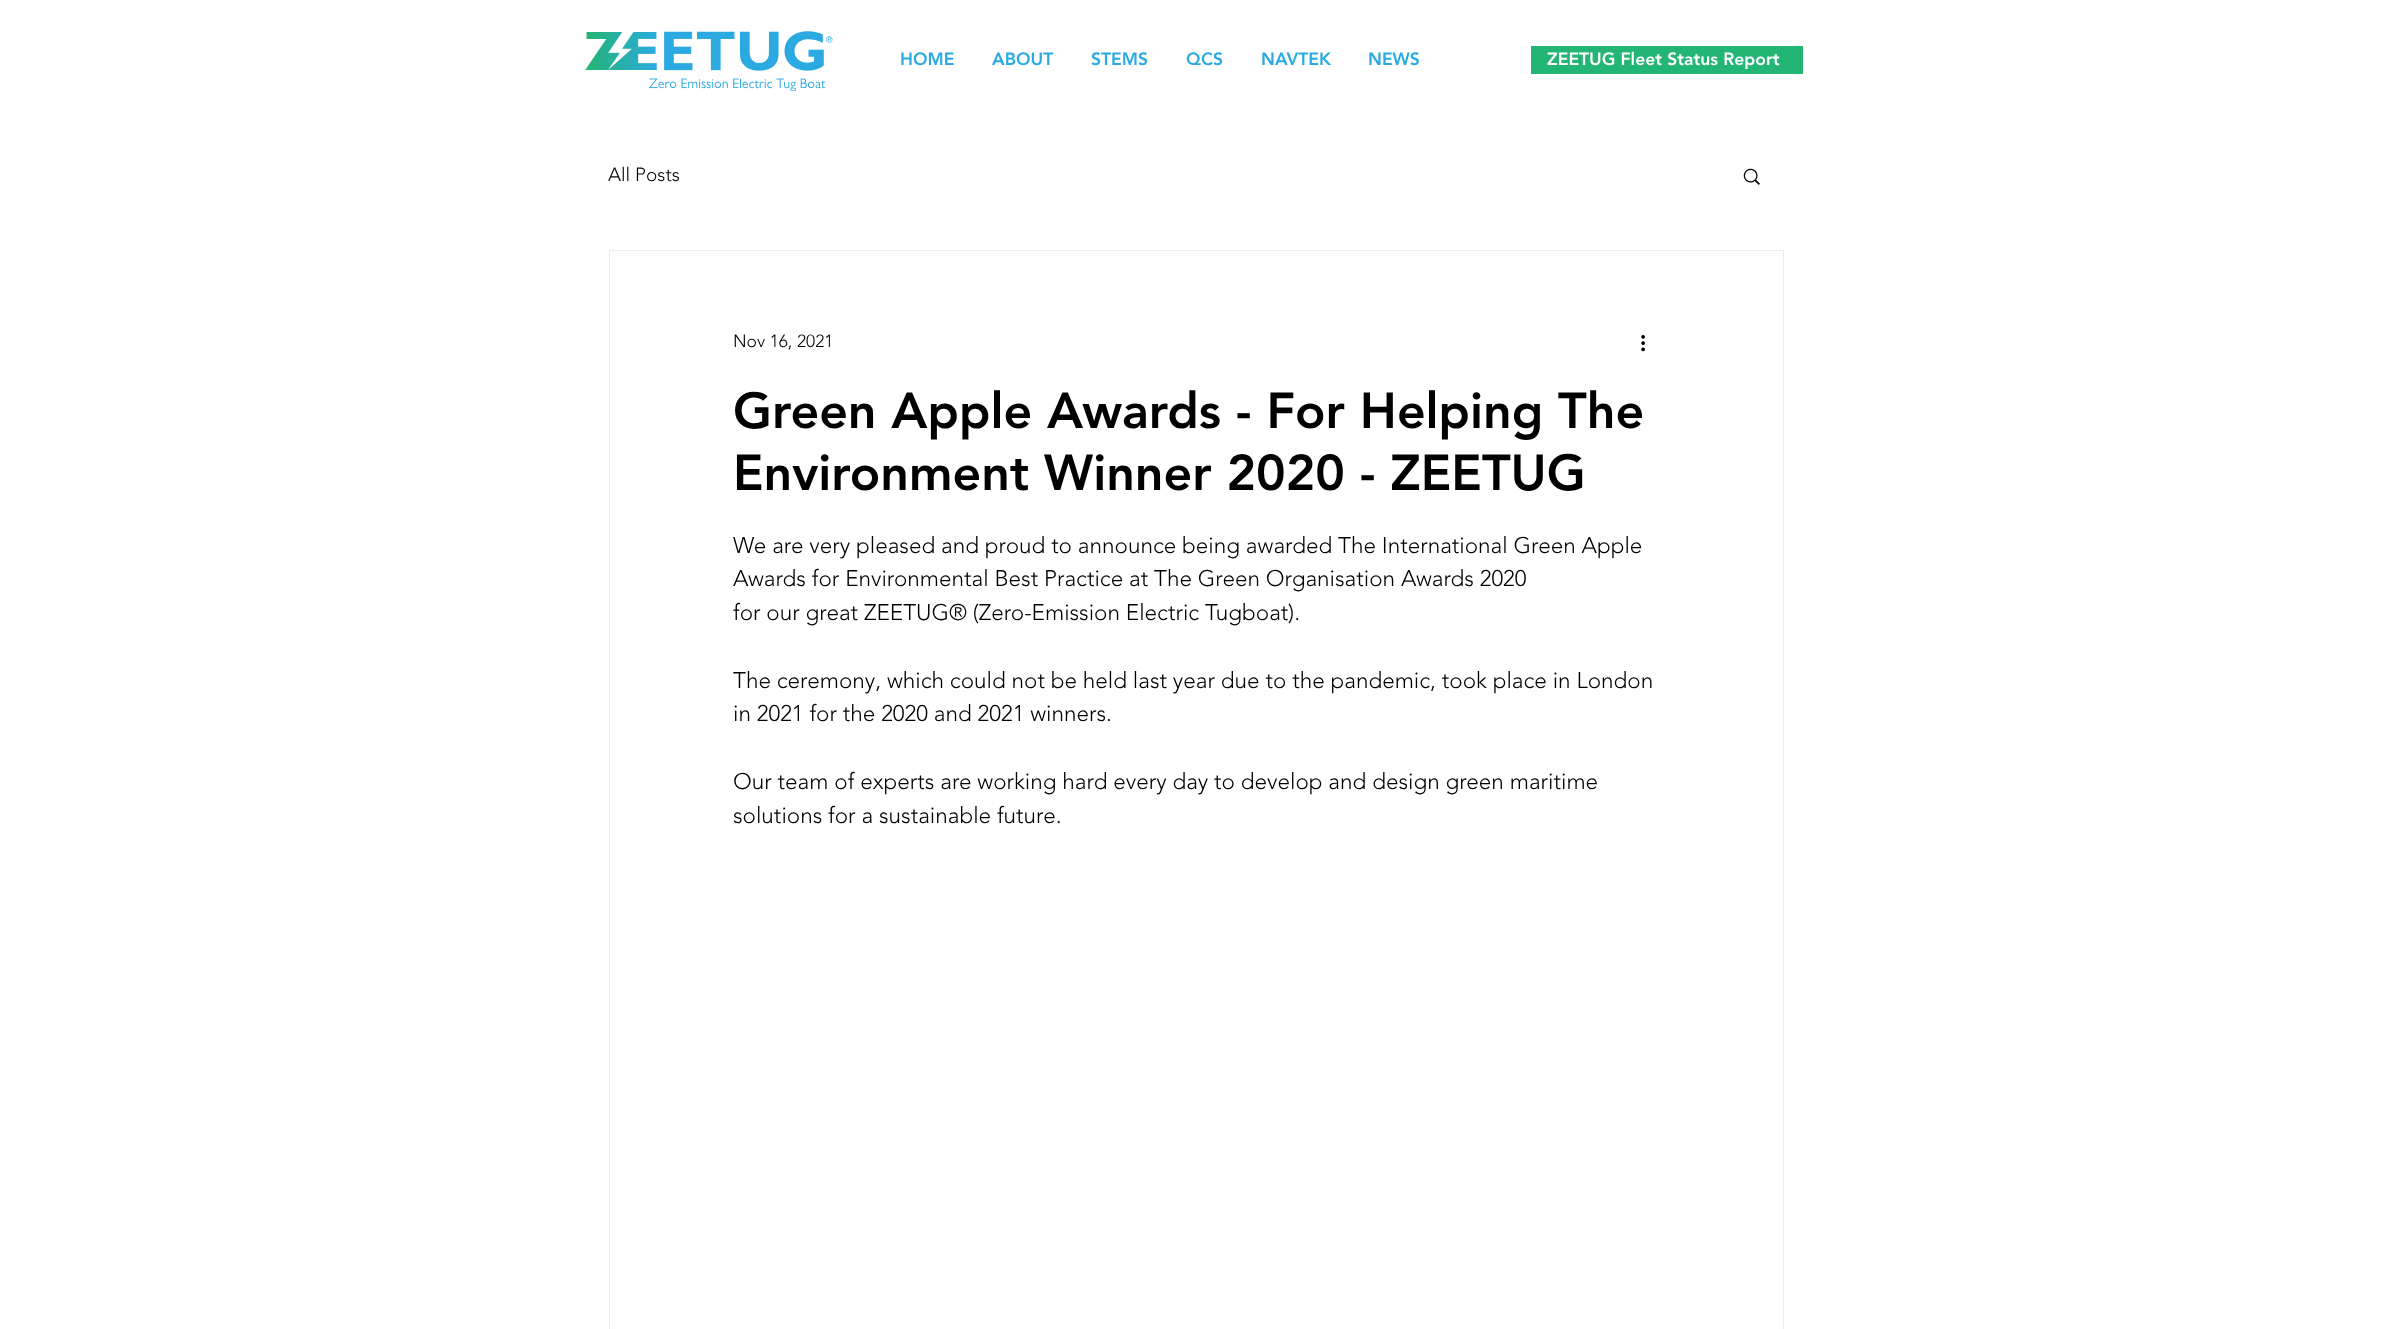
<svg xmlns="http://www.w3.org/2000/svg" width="2391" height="1329">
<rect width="100%" height="100%" fill="#fff"/>
<image x="585" y="31" width="248" height="60" href="media/1.png"/>
<text x="900" y="65" style="font-family:'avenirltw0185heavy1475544';font-size:17.5px;font-weight:900;fill:#29abe2">HOME</text>
<text x="992" y="65" style="font-family:'avenirltw0185heavy1475544';font-size:17.5px;font-weight:900;fill:#29abe2">ABOUT</text>
<text x="1091" y="65" style="font-family:'avenirltw0185heavy1475544';font-size:17.5px;font-weight:900;fill:#29abe2">STEMS</text>
<text x="1186" y="65" style="font-family:'avenirltw0185heavy1475544';font-size:17.5px;font-weight:900;fill:#29abe2">QCS</text>
<text x="1261" y="65" style="font-family:'avenirltw0185heavy1475544';font-size:17.5px;font-weight:900;fill:#29abe2">NAVTEK</text>
<text x="1368" y="65" style="font-family:'avenirltw0185heavy1475544';font-size:17.5px;font-weight:900;fill:#29abe2">NEWS</text>
<rect x="1531" y="46" width="272" height="28" fill="#22b573"/>
<text x="1547" y="65" style="font-family:'avenirltw0185heavy1475544';font-size:17.5px;font-weight:900;fill:#fff">ZEETUG Fleet Status Report</text>
<text x="608" y="181" style="font-family:'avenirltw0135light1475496';font-size:19px;font-weight:300;fill:#000">All Posts</text>
<image x="1743" y="168" width="17" height="17" href="media/2.png"/>
<rect x="609.5" y="250.5" width="1174" height="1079" fill="none" stroke="#eeecec"/>
<text x="733" y="347" style="font-family:'avenirltw0135light1475496';font-size:17.5px;font-weight:300;fill:#000">Nov 16, 2021</text>
<image x="1641" y="335" width="4" height="17" href="media/3.png"/>
<text x="733" y="428" style="font-family:'avenirltw0185heavy1475544';font-size:50px;font-weight:900;fill:#000">Green Apple Awards - For Helping The</text>
<text x="733" y="490" style="font-family:'avenirltw0185heavy1475544';font-size:50px;font-weight:900;fill:#000">Environment Winner 2020 - ZEETUG</text>
<text x="733" y="553" style="font-family:'avenirltw0135light1475496';font-size:22.5px;font-weight:300;fill:#000">We are very pleased and proud to announce being awarded The International Green Apple</text>
<text x="733" y="586" style="font-family:'avenirltw0135light1475496';font-size:22.5px;font-weight:300;fill:#000">Awards for Environmental Best Practice at The Green Organisation Awards 2020</text>
<text x="733" y="620" style="font-family:'avenirltw0135light1475496';font-size:22.5px;font-weight:300;fill:#000">for our great ZEETUG® (Zero-Emission Electric Tugboat).</text>
<text x="733" y="688" style="font-family:'avenirltw0135light1475496';font-size:22.5px;font-weight:300;fill:#000">The ceremony, which could not be held last year due to the pandemic, took place in London</text>
<text x="733" y="721" style="font-family:'avenirltw0135light1475496';font-size:22.5px;font-weight:300;fill:#000">in 2021 for the 2020 and 2021 winners.</text>
<text x="733" y="789" style="font-family:'avenirltw0135light1475496';font-size:22.5px;font-weight:300;fill:#000">Our team of experts are working hard every day to develop and design green maritime</text>
<text x="733" y="823" style="font-family:'avenirltw0135light1475496';font-size:22.5px;font-weight:300;fill:#000">solutions for a sustainable future.</text>
</svg>
